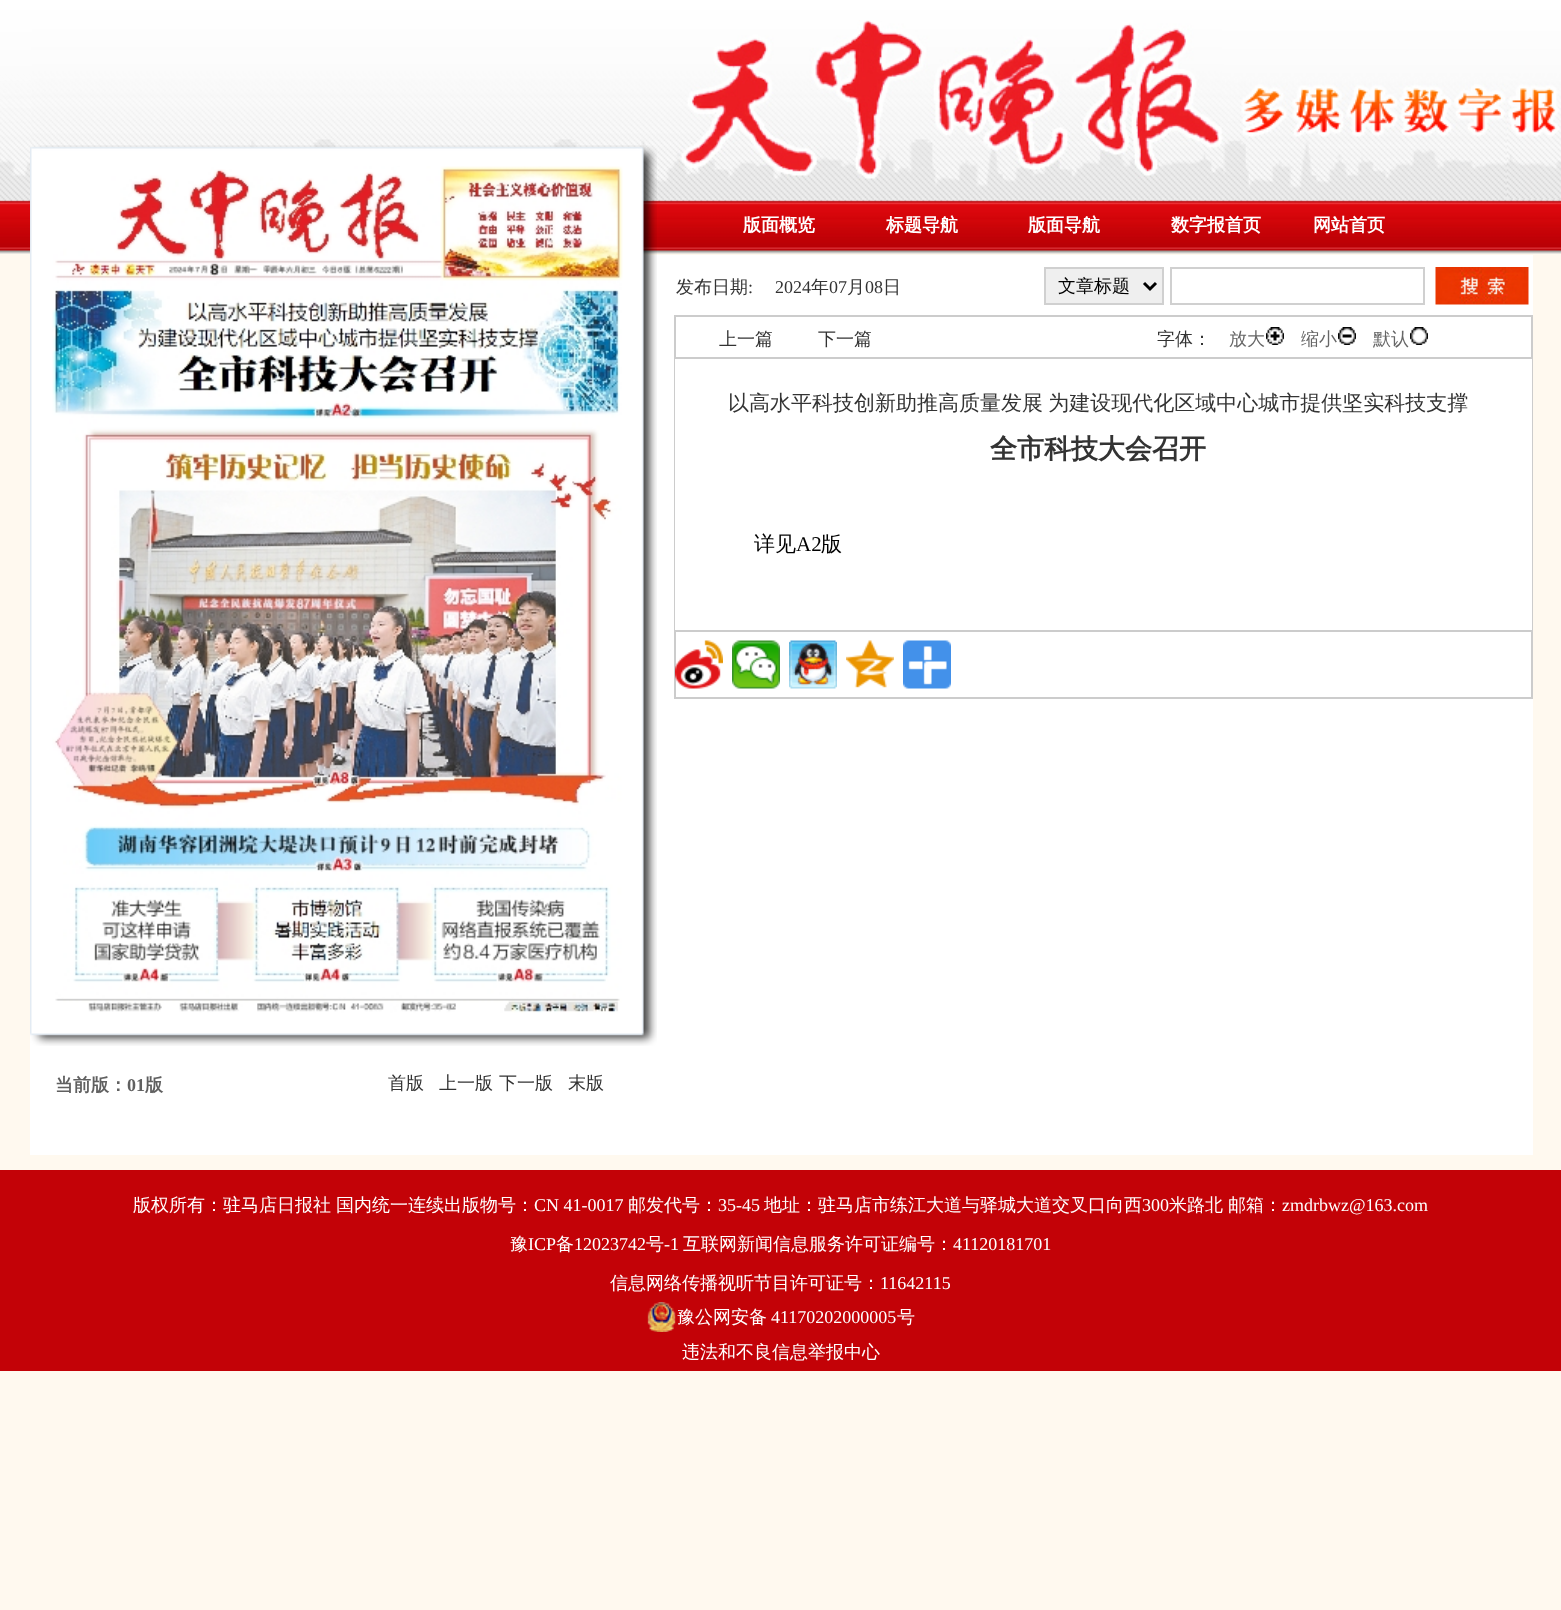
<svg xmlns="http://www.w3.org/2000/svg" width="1561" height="1610">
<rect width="100%" height="100%" fill="#fff9ef"/>
<image x="0" y="0" width="1561" height="254" href="media/1.png"/>
<image x="31" y="20" width="1530" height="180" href="media/2.png"/>
<text x="743" y="231" style="font-family:WenQuanYi Zen Hei;font-size:18px;font-weight:bold;fill:#fff">版面概览</text>
<text x="886" y="231" style="font-family:WenQuanYi Zen Hei;font-size:18px;font-weight:bold;fill:#fff">标题导航</text>
<text x="1028" y="231" style="font-family:WenQuanYi Zen Hei;font-size:18px;font-weight:bold;fill:#fff">版面导航</text>
<text x="1171" y="231" style="font-family:WenQuanYi Zen Hei;font-size:18px;font-weight:bold;fill:#fff">数字报首页</text>
<text x="1313" y="231" style="font-family:WenQuanYi Zen Hei;font-size:18px;font-weight:bold;fill:#fff">网站首页</text>
<rect x="30" y="255" width="1503" height="900" fill="#fff"/>
<text x="676" y="293" style="font-family:WenQuanYi Zen Hei;font-size:18px;font-weight:500;fill:#333">发布日期</text>
<text x="748" y="293" style="font-family:Liberation Serif;font-size:18px;fill:#333">:</text>
<text x="775" y="293" style="font-family:Liberation Serif;font-size:18px;fill:#333">2024</text>
<text x="811" y="293" style="font-family:WenQuanYi Zen Hei;font-size:18px;font-weight:500;fill:#333">年</text>
<text x="829" y="293" style="font-family:Liberation Serif;font-size:18px;fill:#333">07</text>
<text x="847" y="293" style="font-family:WenQuanYi Zen Hei;font-size:18px;font-weight:500;fill:#333">月</text>
<text x="865" y="293" style="font-family:Liberation Serif;font-size:18px;fill:#333">08</text>
<text x="883" y="293" style="font-family:WenQuanYi Zen Hei;font-size:18px;font-weight:500;fill:#333">日</text>
<rect x="1045" y="268" width="118" height="36" fill="#efefef" stroke="#d0d0d0" stroke-width="2"/>
<path d="M1144 283l6 6l6-6" fill="none" stroke="#000" stroke-width="3"/>
<text x="1058" y="292" style="font-family:WenQuanYi Zen Hei;font-size:18px;font-weight:500;fill:#000">文章标题</text>
<rect x="1171" y="268" width="253" height="36" fill="none" stroke="#d0d0d0" stroke-width="2"/>
<image x="1435" y="267" width="94" height="38" href="media/3.png"/>
<rect x="675" y="316" width="857" height="382" fill="none" stroke="#ccc" stroke-width="2"/>
<rect x="675" y="357" width="857" height="2" fill="#ccc"/>
<text x="719" y="345" style="font-family:WenQuanYi Zen Hei;font-size:18px;font-weight:500;fill:#333">上一篇</text>
<text x="818" y="345" style="font-family:WenQuanYi Zen Hei;font-size:18px;font-weight:500;fill:#333">下一篇</text>
<text x="1157" y="345" style="font-family:WenQuanYi Zen Hei;font-size:18px;font-weight:500;fill:#333">字体：</text>
<text x="1229" y="345" style="font-family:WenQuanYi Zen Hei;font-size:18px;font-weight:500;fill:#666">放大</text>
<image x="1266" y="327" width="18" height="18" href="media/4.png"/>
<text x="1301" y="345" style="font-family:WenQuanYi Zen Hei;font-size:18px;font-weight:500;fill:#666">缩小</text>
<image x="1338" y="327" width="18" height="18" href="media/5.png"/>
<text x="1373" y="345" style="font-family:WenQuanYi Zen Hei;font-size:18px;font-weight:500;fill:#666">默认</text>
<image x="1410" y="327" width="18" height="18" href="media/6.png"/>
<rect x="675" y="359" width="857" height="271" fill="#fff"/>
<text x="728" y="410" word-spacing="-1" style="font-family:WenQuanYi Zen Hei;font-size:21px;font-weight:500;fill:#333">以高水平科技创新助推高质量发展 为建设现代化区域中心城市提供坚实科技支撑</text>
<text x="990" y="458" style="font-family:WenQuanYi Zen Hei;font-size:27px;font-weight:bold;fill:#333">全市科技大会召开</text>
<text x="754" y="551" style="font-family:WenQuanYi Zen Hei;font-size:21px;font-weight:500;fill:#000">详见</text>
<text x="796" y="551" style="font-family:Liberation Serif;font-size:21px;fill:#000">A2</text>
<text x="821" y="551" style="font-family:WenQuanYi Zen Hei;font-size:21px;font-weight:500;fill:#000">版</text>
<rect x="675" y="630" width="857" height="2" fill="#ccc"/>
<image x="675" y="640" width="48" height="49" href="media/7.png"/>
<image x="732" y="640" width="48" height="49" href="media/8.png"/>
<image x="789" y="640" width="48" height="49" href="media/9.png"/>
<image x="846" y="640" width="48" height="48" href="media/10.png"/>
<image x="903" y="640" width="48" height="49" href="media/11.png"/>
<image x="30" y="145" width="627" height="901" href="media/12.png"/>
<image x="52" y="166" width="571" height="847" href="media/13.png"/>
<text x="55" y="1091" style="font-family:WenQuanYi Zen Hei;font-size:18px;font-weight:bold;fill:#606060">当前版：</text>
<text x="127" y="1091" style="font-family:Liberation Serif;font-size:18px;font-weight:bold;fill:#606060">01</text>
<text x="145" y="1091" style="font-family:WenQuanYi Zen Hei;font-size:18px;font-weight:bold;fill:#606060">版</text>
<text x="388" y="1089" style="font-family:WenQuanYi Zen Hei;font-size:18px;font-weight:500;fill:#333">首版</text>
<text x="439" y="1089" style="font-family:WenQuanYi Zen Hei;font-size:18px;font-weight:500;fill:#333">上一版</text>
<text x="499" y="1089" style="font-family:WenQuanYi Zen Hei;font-size:18px;font-weight:500;fill:#333">下一版</text>
<text x="568" y="1089" style="font-family:WenQuanYi Zen Hei;font-size:18px;font-weight:500;fill:#333">末版</text>
<rect y="1170" width="1561" height="201" fill="#c30207"/>
<text x="133" y="1211" style="font-family:WenQuanYi Zen Hei;font-size:18px;font-weight:500;fill:#fff">版权所有：驻马店日报社</text>
<text x="336" y="1211" style="font-family:WenQuanYi Zen Hei;font-size:18px;font-weight:500;fill:#fff">国内统一连续出版物号：</text>
<text x="534" y="1211" style="font-family:Liberation Serif;font-size:18px;fill:#fff">CN 41-0017</text>
<text x="628" y="1211" style="font-family:WenQuanYi Zen Hei;font-size:18px;font-weight:500;fill:#fff">邮发代号：</text>
<text x="718" y="1211" style="font-family:Liberation Serif;font-size:18px;fill:#fff">35-45</text>
<text x="764" y="1211" style="font-family:WenQuanYi Zen Hei;font-size:18px;font-weight:500;fill:#fff">地址：驻马店市练江大道与驿城大道交叉口向西</text>
<text x="1142" y="1211" style="font-family:Liberation Serif;font-size:18px;fill:#fff">300</text>
<text x="1169" y="1211" style="font-family:WenQuanYi Zen Hei;font-size:18px;font-weight:500;fill:#fff">米路北</text>
<text x="1228" y="1211" style="font-family:WenQuanYi Zen Hei;font-size:18px;font-weight:500;fill:#fff">邮箱：</text>
<text x="1282" y="1211" style="font-family:Liberation Serif;font-size:18px;fill:#fff">zmdrbwz@163.com</text>
<text x="510" y="1250" style="font-family:WenQuanYi Zen Hei;font-size:18px;font-weight:500;fill:#fff">豫</text>
<text x="528" y="1250" style="font-family:Liberation Serif;font-size:18px;fill:#fff">ICP</text>
<text x="556" y="1250" style="font-family:WenQuanYi Zen Hei;font-size:18px;font-weight:500;fill:#fff">备</text>
<text x="574" y="1250" style="font-family:Liberation Serif;font-size:18px;fill:#fff">12023742</text>
<text x="646" y="1250" style="font-family:WenQuanYi Zen Hei;font-size:18px;font-weight:500;fill:#fff">号</text>
<text x="664" y="1250" style="font-family:Liberation Serif;font-size:18px;fill:#fff">-1</text>
<text x="683" y="1250" style="font-family:WenQuanYi Zen Hei;font-size:18px;font-weight:500;fill:#fff">互联网新闻信息服务许可证编号：</text>
<text x="953" y="1250" style="font-family:Liberation Serif;font-size:18px;fill:#fff">41120181701</text>
<text x="610" y="1289" style="font-family:WenQuanYi Zen Hei;font-size:18px;font-weight:500;fill:#fff">信息网络传播视听节目许可证号：</text>
<text x="880" y="1289" style="font-family:Liberation Serif;font-size:18px;fill:#fff">11642115</text>
<image x="647" y="1302" width="29" height="30" href="media/14.png"/>
<text x="677" y="1323" style="font-family:WenQuanYi Zen Hei;font-size:18px;font-weight:500;fill:#fff">豫公网安备</text>
<text x="771" y="1323" style="font-family:Liberation Serif;font-size:18px;fill:#fff">41170202000005</text>
<text x="897" y="1323" style="font-family:WenQuanYi Zen Hei;font-size:18px;font-weight:500;fill:#fff">号</text>
<text x="682" y="1358" style="font-family:WenQuanYi Zen Hei;font-size:18px;font-weight:500;fill:#fff">违法和不良信息举报中心</text>
</svg>
